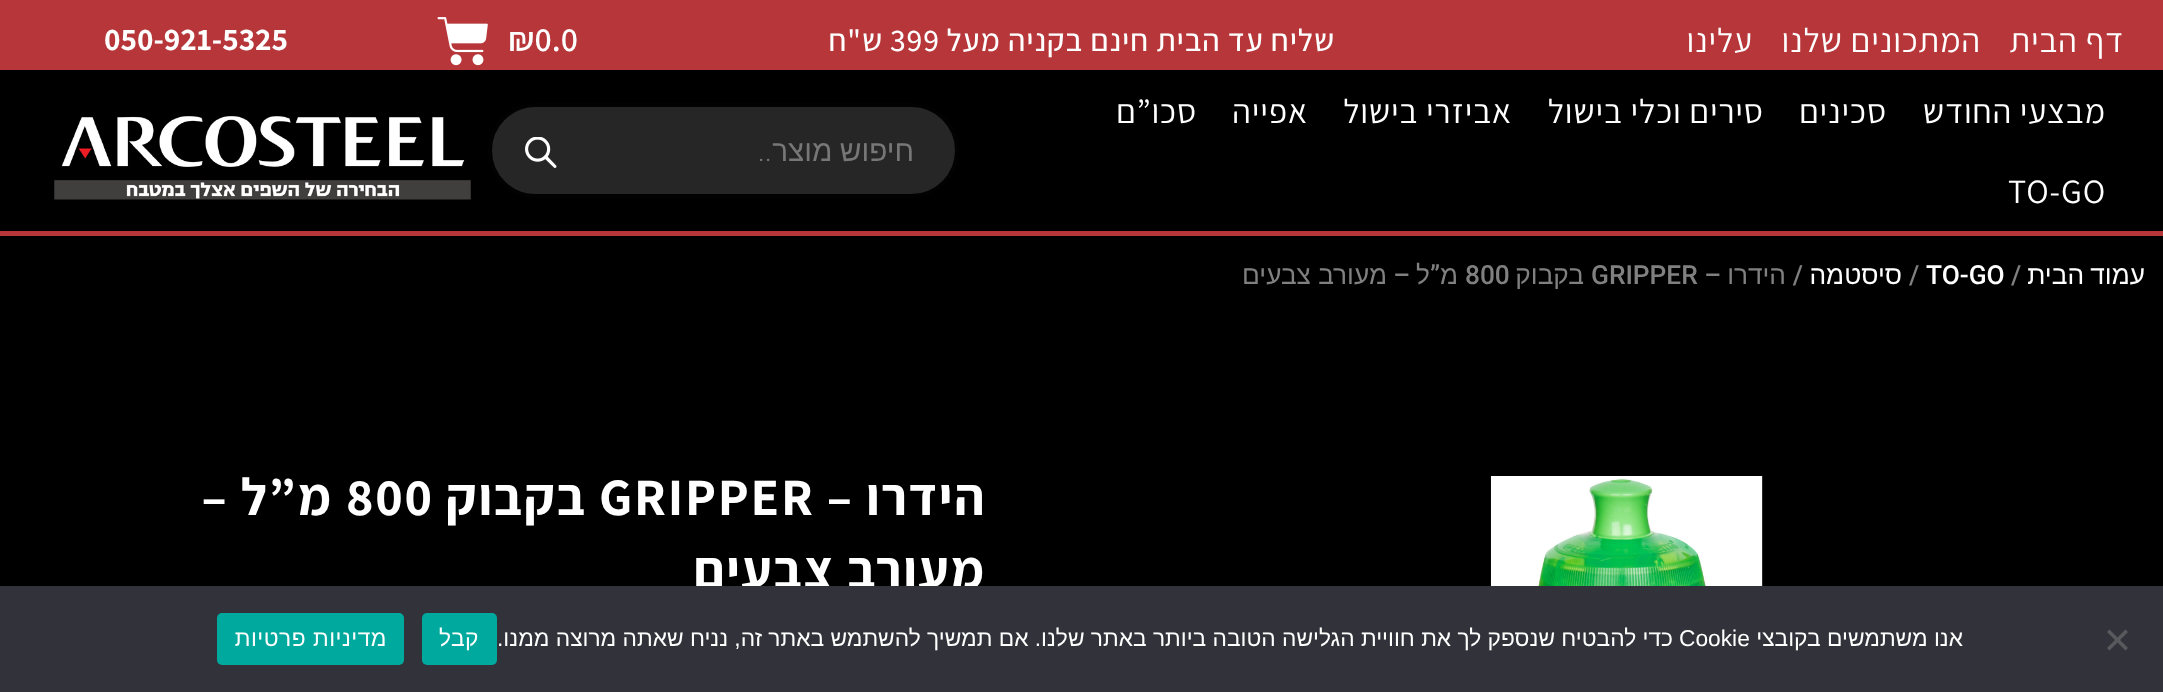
<svg xmlns="http://www.w3.org/2000/svg" width="2163" height="692">
<rect width="100%" height="100%" fill="#000"/>
<rect width="2163" height="70" fill="#b63639"/>
<text x="2124" y="52" style="font-family:Assistant;font-size:34px;letter-spacing:0.9px;direction:rtl;fill:#fff">דף הבית</text>
<text x="1981" y="52" style="font-family:Assistant;font-size:34px;letter-spacing:0.9px;direction:rtl;fill:#fff">המתכונים שלנו</text>
<text x="1753" y="52" style="font-family:Assistant;font-size:34px;letter-spacing:0.9px;direction:rtl;fill:#fff">עלינו</text>
<text x="1335" y="51" style="font-family:Assistant;font-size:31.5px;font-weight:500;letter-spacing:0.9px;direction:rtl;fill:#fff">שליח עד הבית חינם בקניה מעל</text>
<text x="890" y="51" style="font-family:Assistant;font-size:31.5px;font-weight:500;letter-spacing:0.9px;fill:#fff">399</text>
<text x="883" y="51" style="font-family:Assistant;font-size:31.5px;font-weight:500;letter-spacing:0.9px;direction:rtl;fill:#fff">ש"ח</text>
<text x="508" y="51" style="font-family:Assistant;font-size:34px;font-weight:600;fill:#fff">₪0.0</text>
<image x="437" y="17" width="51" height="49" href="media/1.png"/>
<text x="104" y="50" style="font-family:Assistant;font-size:31.5px;font-weight:bold;fill:#fff">050-921-5325</text>
<rect y="231" width="2163" height="5" fill="#b63639"/>
<text x="2106" y="123" style="font-family:Assistant;font-size:34px;letter-spacing:0.9px;direction:rtl;fill:#fff">מבצעי החודש</text>
<text x="1887" y="123" style="font-family:Assistant;font-size:34px;letter-spacing:0.9px;direction:rtl;fill:#fff">סכינים</text>
<text x="1764" y="123" style="font-family:Assistant;font-size:34px;letter-spacing:0.9px;direction:rtl;fill:#fff">סירים וכלי בישול</text>
<text x="1512" y="123" style="font-family:Assistant;font-size:34px;letter-spacing:0.9px;direction:rtl;fill:#fff">אביזרי בישול</text>
<text x="1308" y="123" style="font-family:Assistant;font-size:34px;letter-spacing:0.9px;direction:rtl;fill:#fff">אפייה</text>
<text x="1197" y="123" style="font-family:Assistant;font-size:34px;letter-spacing:0.9px;direction:rtl;fill:#fff">סכו”ם</text>
<text x="2008" y="203" style="font-family:Assistant;font-size:34px;letter-spacing:0.9px;fill:#fff">TO-GO</text>
<rect x="490" y="105" width="467" height="91" rx="45.5" fill="#262626" stroke="#020202" stroke-width="4"/>
<text x="914" y="161" word-spacing="-1" style="font-family:Liberation Sans;font-size:29.75px;direction:rtl;fill:#777">חיפוש מוצר</text>
<text x="772" y="161" style="font-family:Roboto;font-size:29.75px;font-weight:300;direction:rtl;fill:#777">..</text>
<image x="525" y="137" width="32" height="31" href="media/2.png"/>
<image x="54" y="116" width="417" height="84" href="media/3.png"/>
<text x="2145" y="284" word-spacing="-1" style="font-family:Liberation Sans;font-size:26.25px;direction:rtl;fill:#fff">עמוד הבית</text>
<text x="2011" y="284" style="font-family:Roboto;font-size:26.25px;font-weight:500;fill:#808080">/</text>
<text x="1926" y="284" style="font-family:Roboto;font-size:26.25px;font-weight:500;fill:#fff">TO-GO</text>
<text x="1909" y="284" style="font-family:Roboto;font-size:26.25px;font-weight:500;fill:#808080">/</text>
<text x="1902" y="284" style="font-family:Liberation Sans;font-size:26.25px;direction:rtl;fill:#fff">סיסטמה</text>
<text x="1803" y="284" style="font-family:Roboto;font-size:26.25px;font-weight:500;direction:rtl;fill:#808080">/</text>
<text x="1786" y="284" style="font-family:Liberation Sans;font-size:26.25px;direction:rtl;fill:#808080">הידרו</text>
<text x="1721" y="284" style="font-family:Roboto;font-size:26.25px;font-weight:500;direction:rtl;fill:#808080">–</text>
<text x="1591" y="284" style="font-family:Roboto;font-size:26.25px;font-weight:500;fill:#808080">GRIPPER</text>
<text x="1584" y="284" style="font-family:Liberation Sans;font-size:26.25px;direction:rtl;fill:#808080">בקבוק</text>
<text x="1465" y="284" style="font-family:Roboto;font-size:26.25px;font-weight:500;fill:#808080">800</text>
<text x="1458" y="284" style="font-family:Liberation Sans;font-size:26.25px;direction:rtl;fill:#808080">מ</text>
<text x="1440" y="284" style="font-family:Roboto;font-size:26.25px;font-weight:500;direction:rtl;fill:#808080">”</text>
<text x="1430" y="284" style="font-family:Liberation Sans;font-size:26.25px;direction:rtl;fill:#808080">ל</text>
<text x="1410" y="284" style="font-family:Roboto;font-size:26.25px;font-weight:500;direction:rtl;fill:#808080">–</text>
<text x="1387" y="284" style="font-family:Liberation Sans;font-size:26.25px;direction:rtl;fill:#808080">מעורב צבעים</text>
<image x="1490" y="476" width="273" height="110" href="media/4.png"/>
<text x="986" y="515" style="font-family:Assistant;font-size:52.5px;font-weight:bold;letter-spacing:1.75px;direction:rtl;fill:#fff">הידרו –</text>
<text x="599" y="515" style="font-family:Assistant;font-size:52.5px;font-weight:bold;letter-spacing:1.75px;fill:#fff">GRIPPER</text>
<text x="587" y="515" style="font-family:Assistant;font-size:52.5px;font-weight:bold;letter-spacing:1.75px;direction:rtl;fill:#fff">בקבוק</text>
<text x="346" y="515" style="font-family:Assistant;font-size:52.5px;font-weight:bold;letter-spacing:1.75px;fill:#fff">800</text>
<text x="333" y="515" style="font-family:Assistant;font-size:52.5px;font-weight:bold;letter-spacing:1.75px;direction:rtl;fill:#fff">מ”ל –</text>
<text x="986" y="588" style="font-family:Assistant;font-size:52.5px;font-weight:bold;letter-spacing:1.75px;direction:rtl;fill:#fff">מעורב צבעים</text>
<rect y="586" width="2163" height="106" fill="#32323a"/>
<path d="M2125.5 629.5l2.5 2.5l-18.5 18.5l-2.5-2.5z" fill="#59595d"/>
<path d="M2107 632l2.5-2.5l18.5 18.5l-2.5 2.5z" fill="#59595d"/>
<text x="1963" y="646" style="font-family:Liberation Sans;font-size:22.75px;direction:rtl;fill:#fff">אנו משתמשים בקובצי</text>
<text x="1679" y="646" style="font-family:Liberation Sans;font-size:22.75px;fill:#fff">Cookie</text>
<text x="1673" y="646" style="font-family:Liberation Sans;font-size:22.75px;direction:rtl;fill:#fff">כדי להבטיח שנספק לך את חוויית הגלישה הטובה ביותר באתר שלנו. אם תמשיך להשתמש באתר זה, נניח שאתה מרוצה ממנו.</text>
<rect x="422" y="613" width="75" height="52" rx="5" fill="#00a99d"/>
<text x="479" y="646" style="font-family:Liberation Sans;font-size:22.75px;letter-spacing:0.5px;direction:rtl;fill:#fff">קבל</text>
<rect x="217" y="613" width="187" height="52" rx="5" fill="#00a99d"/>
<text x="387" y="646" style="font-family:Liberation Sans;font-size:22.75px;letter-spacing:0.5px;direction:rtl;fill:#fff">מדיניות פרטיות</text>
</svg>
